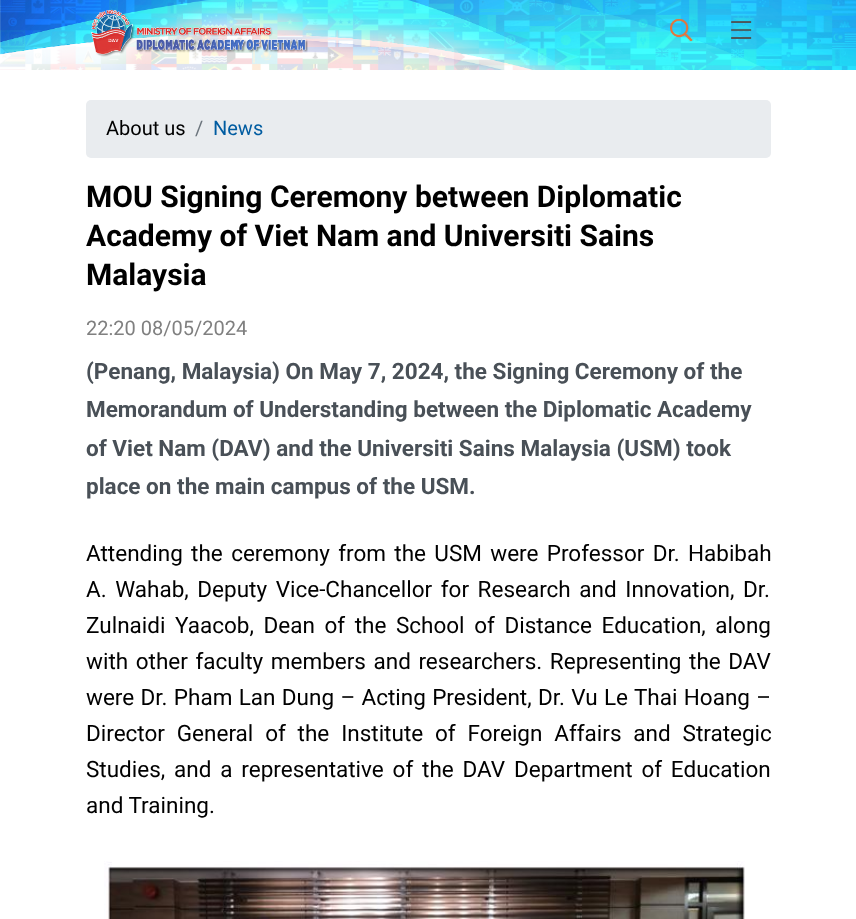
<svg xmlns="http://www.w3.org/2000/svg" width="856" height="919">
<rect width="100%" height="100%" fill="#fff"/>
<image x="0" y="0" width="856" height="70" href="media/1.png"/>
<image x="91" y="9" width="217" height="48" href="media/2.png"/>
<image x="670" y="18" width="23" height="24" href="media/3.png"/>
<image x="731" y="21" width="21" height="18" href="media/4.png"/>
<rect x="86" y="100" width="685" height="58" rx="5" fill="#e9ecef"/>
<text x="106" y="135" style="font-family:Roboto;font-size:20px;fill:#000">About us</text>
<text x="195" y="135" style="font-family:Roboto;font-size:20px;fill:#6c757d">/</text>
<text x="213" y="135" style="font-family:Roboto;font-size:20px;fill:#005ca1">News</text>
<text x="86" y="207" style="font-family:Roboto;font-size:30px;font-weight:bold;fill:#000">MOU Signing Ceremony between Diplomatic</text>
<text x="86" y="246" style="font-family:Roboto;font-size:30px;font-weight:bold;fill:#000">Academy of Viet Nam and Universiti Sains</text>
<text x="86" y="285" style="font-family:Roboto;font-size:30px;font-weight:bold;fill:#000">Malaysia</text>
<text x="86" y="335" style="font-family:Roboto;font-size:20px;fill:#808080">22:20 08/05/2024</text>
<text x="86" y="379" style="font-family:Roboto;font-size:22.5px;font-weight:bold;fill:#495057">(Penang, Malaysia) On May 7, 2024, the Signing Ceremony of the</text>
<text x="86" y="417" style="font-family:Roboto;font-size:22.5px;font-weight:bold;fill:#495057">Memorandum of Understanding between the Diplomatic Academy</text>
<text x="86" y="456" style="font-family:Roboto;font-size:22.5px;font-weight:bold;fill:#495057">of Viet Nam (DAV) and the Universiti Sains Malaysia (USM) took</text>
<text x="86" y="494" style="font-family:Roboto;font-size:22.5px;font-weight:bold;fill:#495057">place on the main campus of the USM.</text>
<text x="86" y="561" word-spacing="2.75" style="font-family:Roboto;font-size:22.5px;fill:#000">Attending the ceremony from the USM were Professor Dr. Habibah</text>
<text x="86" y="597" word-spacing="3" style="font-family:Roboto;font-size:22.5px;fill:#000">A. Wahab, Deputy Vice-Chancellor for Research and Innovation, Dr.</text>
<text x="86" y="633" word-spacing="4" style="font-family:Roboto;font-size:22.5px;fill:#000">Zulnaidi Yaacob, Dean of the School of Distance Education, along</text>
<text x="86" y="669" word-spacing="2" style="font-family:Roboto;font-size:22.5px;fill:#000">with other faculty members and researchers. Representing the DAV</text>
<text x="86" y="705" word-spacing="0.75" style="font-family:Roboto;font-size:22.5px;fill:#000">were Dr. Pham Lan Dung – Acting President, Dr. Vu Le Thai Hoang –</text>
<text x="86" y="741" word-spacing="6.25" style="font-family:Roboto;font-size:22.5px;fill:#000">Director General of the Institute of Foreign Affairs and Strategic</text>
<text x="86" y="777" word-spacing="3.25" style="font-family:Roboto;font-size:22.5px;fill:#000">Studies, and a representative of the DAV Department of Education</text>
<text x="86" y="813" style="font-family:Roboto;font-size:22.5px;fill:#000">and Training.</text>
<image x="104" y="861" width="641" height="58" href="media/5.png"/>
</svg>
